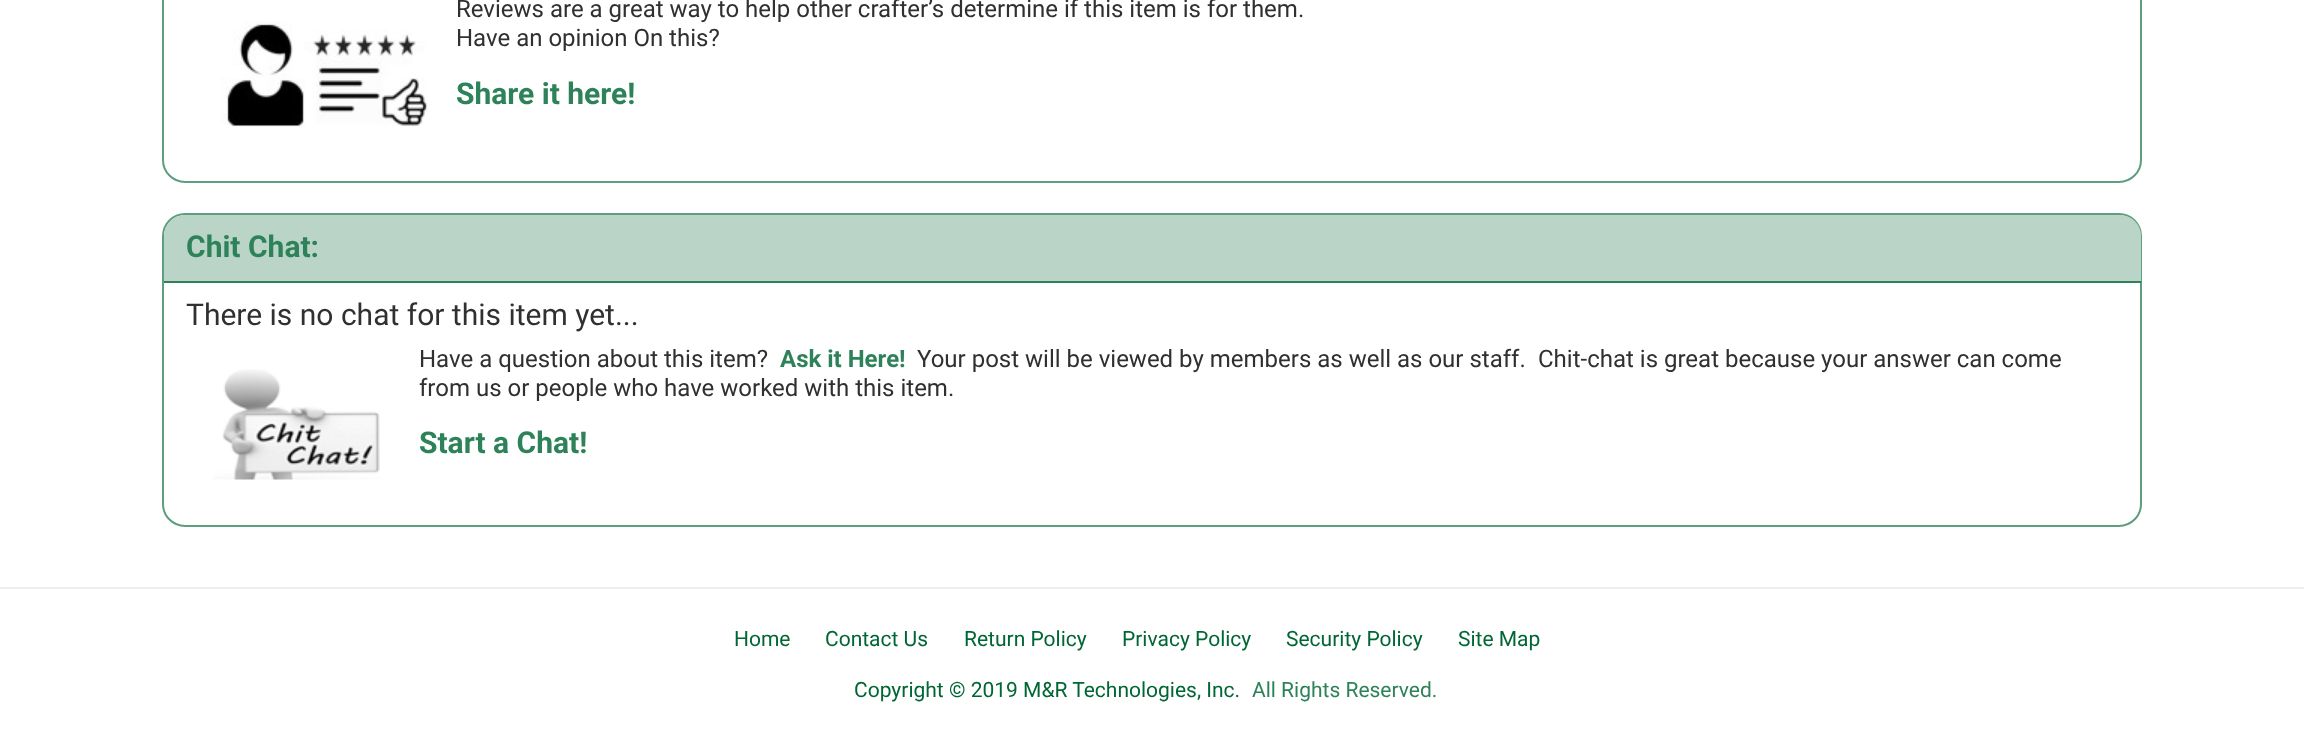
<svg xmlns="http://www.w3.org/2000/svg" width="2304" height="755">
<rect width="100%" height="100%" fill="#fff"/>
<rect x="163" y="-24" width="1978" height="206" rx="22" fill="none" stroke="#5d9e7e" stroke-width="2"/>
<text x="456" y="17" style="font-family:Roboto;font-size:24px;fill:#303030">Reviews are a great way to help other crafter’s determine if this item is for them.</text>
<image x="221" y="21" width="208" height="106" href="media/1.png"/>
<text x="456" y="46" style="font-family:Roboto;font-size:24px;fill:#303030">Have an opinion On this?</text>
<text x="456" y="104" style="font-family:Roboto;font-size:30px;font-weight:bold;fill:#2e8259">Share it here!</text>
<rect x="163" y="214" width="1978" height="312" rx="22" fill="none" stroke="#5d9e7e" stroke-width="2"/>
<path d="M185 215h1935c11.5 0 21 9.5 21 21v46h-1977v-46c0-11.5 9.5-21 21-21z" fill="#bad5c8"/>
<rect x="164" y="281" width="1977" height="2" fill="#2e8259"/>
<text x="186" y="257" style="font-family:Roboto;font-size:30px;font-weight:bold;fill:#2e8259">Chit Chat:</text>
<text x="186" y="325" style="font-family:Roboto;font-size:30px;fill:#303030">There is no chat for this item yet...</text>
<text x="419" y="367" style="font-family:Roboto;font-size:24px;fill:#303030">Have a question about this item?</text>
<text x="780" y="367" style="font-family:Roboto;font-size:24px;font-weight:bold;fill:#2e8259">Ask it Here!</text>
<text x="917" y="367" style="font-family:Roboto;font-size:24px;fill:#303030">Your post will be viewed by members as well as our staff.</text>
<text x="1538" y="367" style="font-family:Roboto;font-size:24px;fill:#303030">Chit-chat is great because your answer can come</text>
<image x="214" y="369" width="166" height="111" href="media/2.png"/>
<text x="419" y="396" style="font-family:Roboto;font-size:24px;fill:#303030">from us or people who have worked with this item.</text>
<text x="419" y="453" style="font-family:Roboto;font-size:30px;font-weight:bold;fill:#2e8259">Start a Chat!</text>
<rect y="587" width="2304" height="2" fill="#efefef"/>
<text x="734" y="646" style="font-family:Roboto;font-size:21px;fill:#006634">Home</text>
<text x="825" y="646" style="font-family:Roboto;font-size:21px;fill:#006634">Contact Us</text>
<text x="964" y="646" style="font-family:Roboto;font-size:21px;fill:#006634">Return Policy</text>
<text x="1122" y="646" style="font-family:Roboto;font-size:21px;fill:#006634">Privacy Policy</text>
<text x="1286" y="646" style="font-family:Roboto;font-size:21px;fill:#006634">Security Policy</text>
<text x="1458" y="646" style="font-family:Roboto;font-size:21px;fill:#006634">Site Map</text>
<text x="854" y="697" style="font-family:Roboto;font-size:21px;fill:#006634">Copyright © 2019 M&amp;R Technologies, Inc.</text>
<text x="1252" y="697" style="font-family:Roboto;font-size:21px;fill:#2e8259">All Rights Reserved.</text>
</svg>
